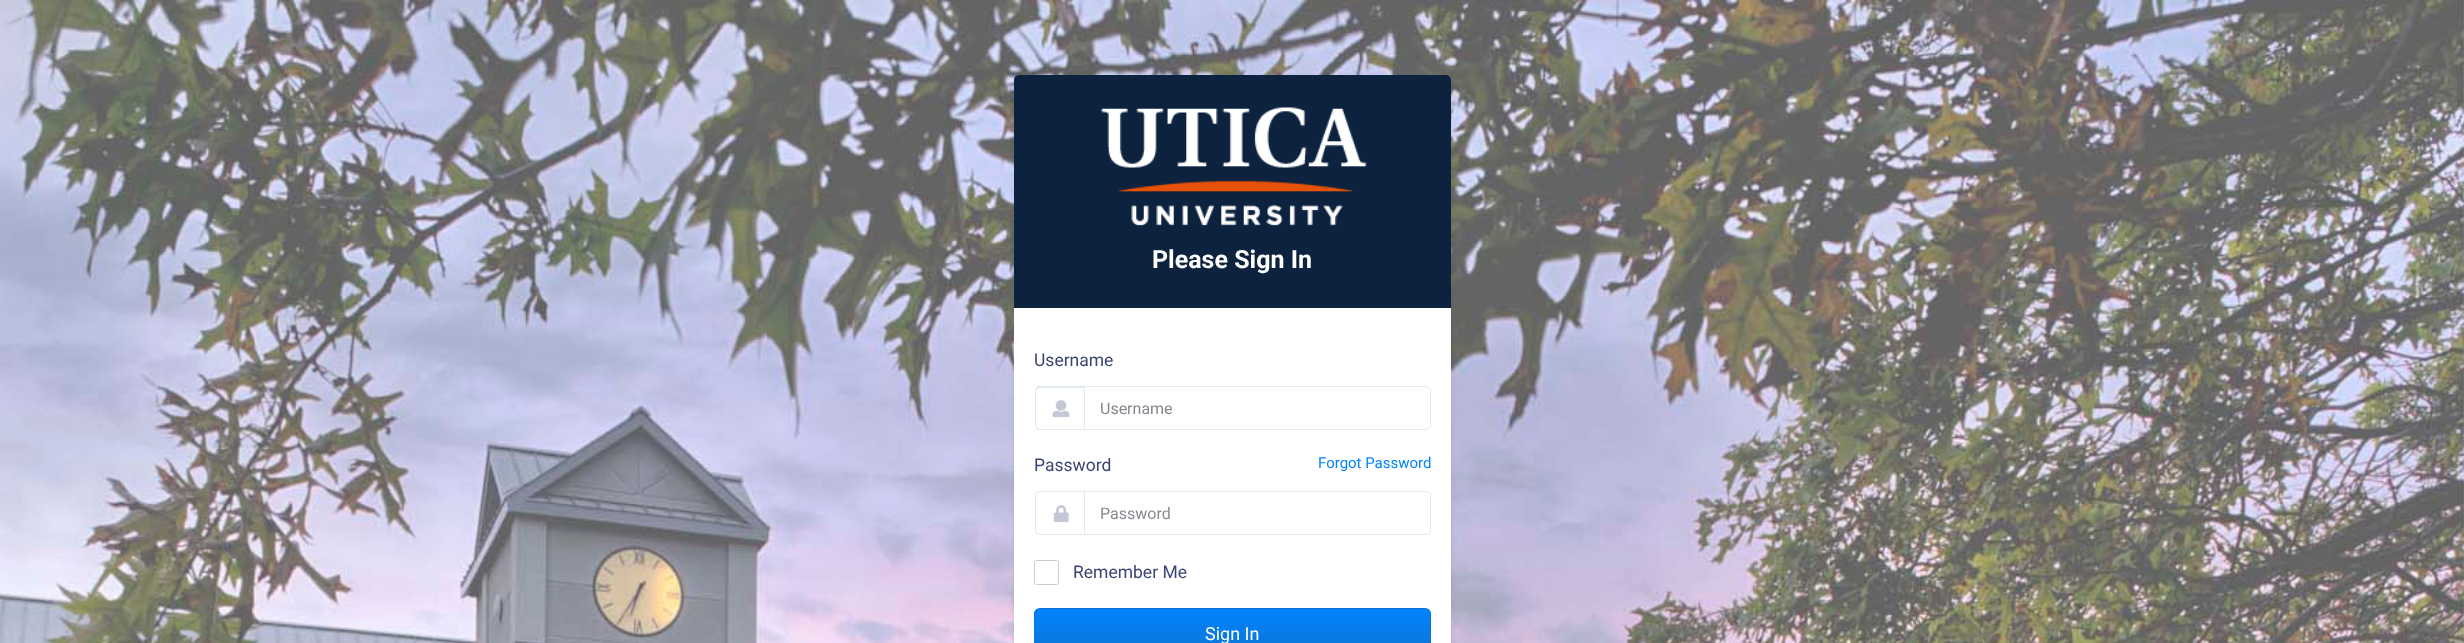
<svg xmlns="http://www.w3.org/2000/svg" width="2464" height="643">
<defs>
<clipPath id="clip1"><rect x="1034" y="608" width="397" height="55" rx="6"/></clipPath>
<linearGradient id="g1" gradientUnits="userSpaceOnUse" x1="1233" y1="609" x2="1233" y2="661"><stop offset="0" stop-color="#0084ff"/><stop offset="1" stop-color="#1072ce"/></linearGradient>
</defs>
<rect width="100%" height="100%" fill="#fff"/>
<image x="0" y="0" width="2464" height="643" href="media/1.png"/>
<rect x="1014" y="78" width="437" height="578" rx="5" fill="#00000012" filter="blur(2.5px)"/>
<rect x="1014" y="75" width="437" height="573" rx="5" fill="#fff"/>
<path d="M1019 75h427c3 0 5 2 5 5v228h-437v-228c0-3 2-5 5-5z" fill="#0c223f"/>
<image x="1101" y="107" width="266" height="119" href="media/2.png"/>
<text x="1152" y="268" style="font-family:Roboto;font-size:25px;font-weight:bold;fill:#fff">Please Sign In</text>
<text x="1034" y="366" style="font-family:Roboto;font-size:17.5px;fill:#3b4472">Username</text>
<path d="M1040 386h45v44h-45c-3 0-5-2-5-5v-34c0-3 2-5 5-5zm0 2h45v41h-45c-2 0-4-2-4-4v-34c0-2 2-3 4-3z" fill="#e1eaea" fill-rule="evenodd"/>
<image x="1052" y="400" width="18" height="18" href="media/3.png"/>
<path d="M1084.5 386.5h341.5c2.5 0 4.5 2 4.5 4.5v34c0 2.5-2 4.5-4.5 4.5h-341.5z" fill="none" stroke="#e1eaea"/>
<text x="1100" y="414" style="font-family:Roboto;font-size:16px;fill:#87888f">Username</text>
<text x="1034" y="471" style="font-family:Roboto;font-size:17.5px;fill:#3b4472">Password</text>
<text x="1318" y="468" style="font-family:Roboto;font-size:15px;fill:#0084ff">Forgot Password</text>
<path d="M1040 491h45v44h-45c-3 0-5-2-5-5v-34c0-3 2-5 5-5zm0 1h45v42h-45c-2 0-4-2-4-4v-34c0-2 2-4 4-4z" fill="#e1eaea" fill-rule="evenodd"/>
<image x="1053" y="505" width="16" height="18" href="media/4.png"/>
<path d="M1084.5 491.5h341.5c2.5 0 4.5 2 4.5 4.5v34c0 2.5-2 4.5-4.5 4.5h-341.5z" fill="none" stroke="#e1eaea"/>
<text x="1100" y="519" style="font-family:Roboto;font-size:16px;fill:#87888f">Password</text>
<rect x="1034.5" y="560.5" width="24" height="24" rx="2" fill="none" stroke="#ccc"/>
<rect x="1035.5" y="561.5" width="22" height="22" rx="2" fill="none" stroke="#fff"/>
<text x="1073" y="578" style="font-family:Roboto;font-size:17.5px;fill:#3b4472">Remember Me</text>
<g clip-path="url(#clip1)">
<rect x="1034" y="609" width="397" height="34" fill="url(#g1)"/>
</g>
<rect x="1034.5" y="608.5" width="396" height="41" rx="5.5" fill="none" stroke="#1072ce"/>
<text x="1205" y="640" style="font-family:Roboto;font-size:18px;fill:#fff">Sign In</text>
</svg>
